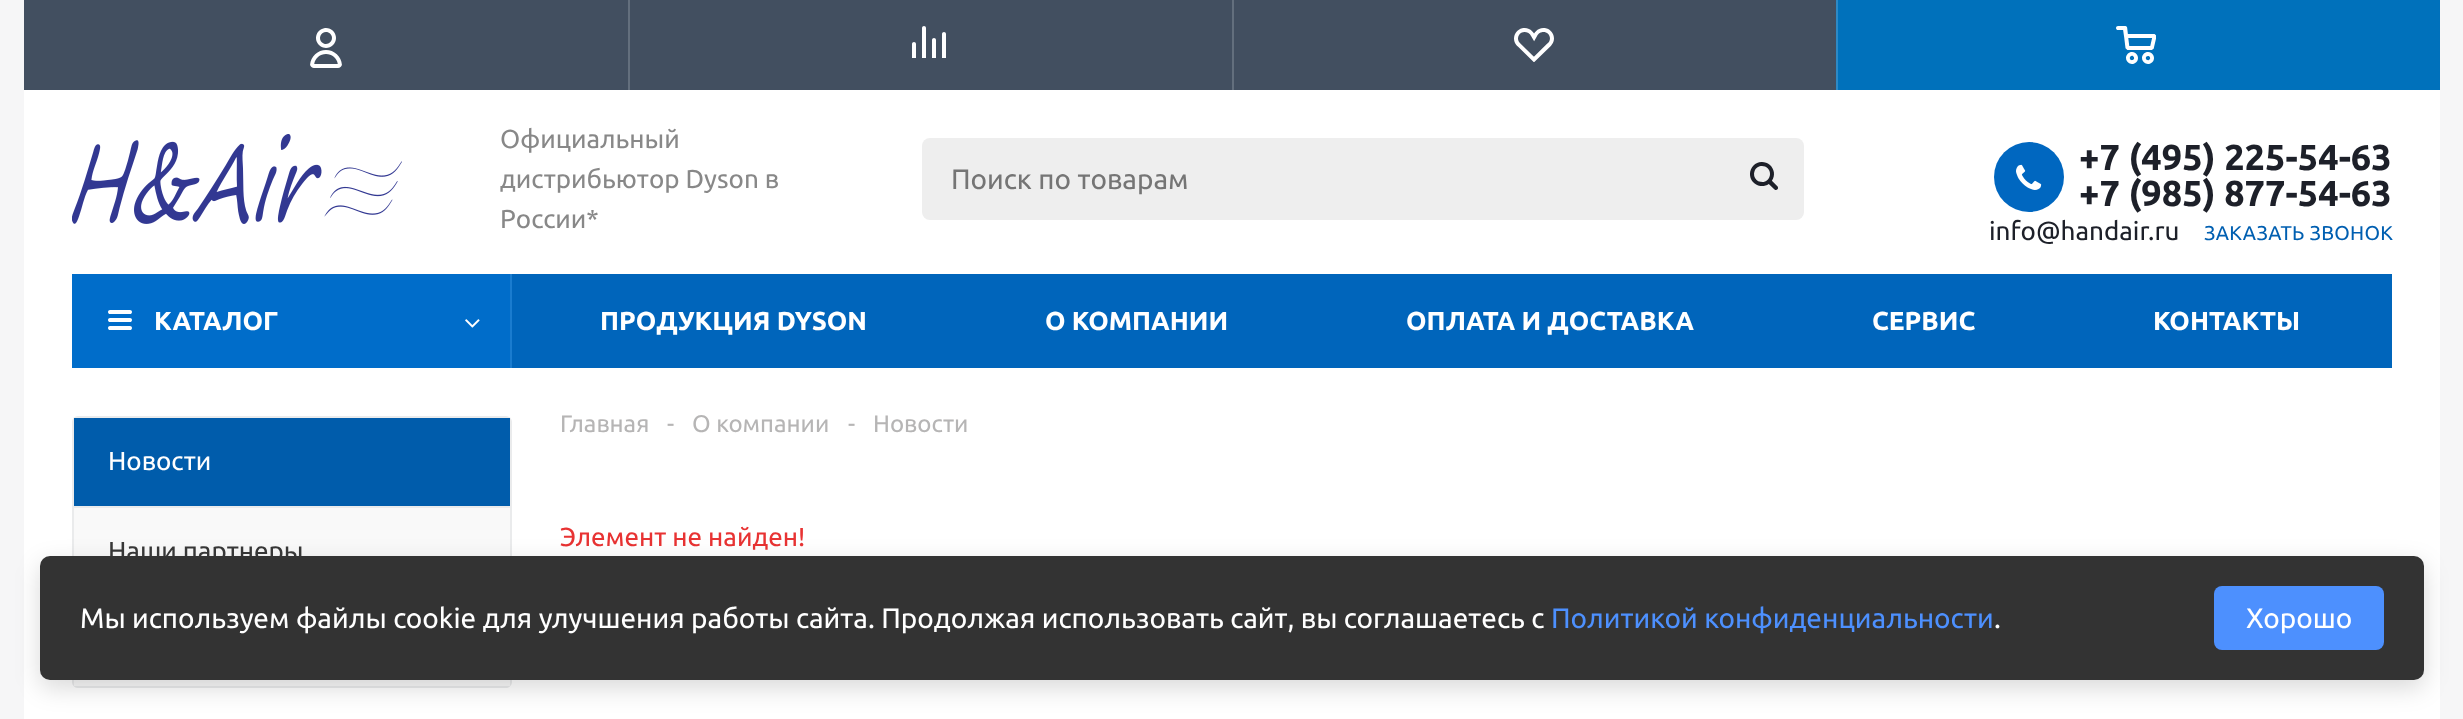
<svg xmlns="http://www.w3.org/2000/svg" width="2463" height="719">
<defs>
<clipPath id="clip1"><rect x="72" y="416" width="440" height="272" rx="6"/></clipPath>
</defs>
<rect width="100%" height="100%" fill="#f6f6f7"/>
<rect x="24" y="90" width="2416" height="629" fill="#fff"/>
<image x="72" y="134" width="330" height="90" href="media/1.png"/>
<text x="500" y="148" style="font-family:Ubuntu;font-size:26px;fill:#888">Официальный</text>
<text x="500" y="188" style="font-family:Ubuntu;font-size:26px;fill:#888">дистрибьютор Dyson в</text>
<text x="500" y="228" style="font-family:Ubuntu;font-size:26px;fill:#888">России*</text>
<rect x="922" y="138" width="882" height="82" rx="8" fill="#eee"/>
<text x="951" y="189" style="font-family:Ubuntu;font-size:28px;fill:#757575">Поиск по товарам</text>
<image x="1750" y="162" width="28" height="28" href="media/2.png"/>
<rect x="24" width="1812" height="90" fill="#424f60"/>
<image x="310" y="28" width="32" height="40" href="media/3.png"/>
<rect x="628" width="2" height="90" fill="#636f7d"/>
<image x="912" y="26" width="34" height="32" href="media/4.png"/>
<rect x="1232" width="2" height="90" fill="#636f7d"/>
<image x="1514" y="28" width="40" height="34" href="media/5.png"/>
<rect x="1838" width="602" height="90" fill="#0071bb"/>
<rect x="1836" width="2" height="90" fill="#2e8ac6"/>
<image x="2116" y="26" width="40" height="38" href="media/6.png"/>
<circle cx="2029" cy="177" r="35" fill="#0067c0"/>
<image x="2016" y="164" width="26" height="26" href="media/7.png"/>
<text x="2079" y="170" style="font-family:Ubuntu;font-size:36px;font-weight:bold;fill:#1d2029">+7 (495) 225-54-63</text>
<text x="2079" y="206" style="font-family:Ubuntu;font-size:36px;font-weight:bold;fill:#1d2029">+7 (985) 877-54-63</text>
<text x="1989" y="240" style="font-family:Ubuntu;font-size:26px;fill:#1d2029">info@handair.ru</text>
<text x="2204" y="240" style="font-family:Ubuntu;font-size:20px;letter-spacing:0.25px;fill:#005fb1">ЗАКАЗАТЬ ЗВОНОК</text>
<rect x="512" y="274" width="1880" height="94" fill="#0065bb"/>
<rect x="72" y="274" width="438" height="94" fill="#006dca"/>
<image x="108" y="310" width="24" height="20" href="media/8.png"/>
<text x="154" y="330" style="font-family:Ubuntu;font-size:26px;font-weight:bold;fill:#fff">КАТАЛОГ</text>
<rect x="510" y="274" width="2" height="94" fill="#1a7ccf"/>
<image x="465" y="319" width="15" height="9" href="media/9.png"/>
<text x="600" y="330" style="font-family:Ubuntu;font-size:26px;font-weight:bold;fill:#fff">ПРОДУКЦИЯ DYSON</text>
<text x="1045" y="330" style="font-family:Ubuntu;font-size:26px;font-weight:bold;fill:#fff">О КОМПАНИИ</text>
<text x="1406" y="330" style="font-family:Ubuntu;font-size:26px;font-weight:bold;fill:#fff">ОПЛАТА И ДОСТАВКА</text>
<text x="1872" y="330" style="font-family:Ubuntu;font-size:26px;font-weight:bold;fill:#fff">СЕРВИС</text>
<text x="2153" y="330" style="font-family:Ubuntu;font-size:26px;font-weight:bold;fill:#fff">КОНТАКТЫ</text>
<rect x="74" y="418" width="436" height="88" fill="#005cab"/>
<g clip-path="url(#clip1)">
<rect x="72" y="416" width="440" height="2" fill="#eaebec"/>
<rect x="510" y="416" width="2" height="90" fill="#eaebec"/>
<rect x="72" y="416" width="2" height="90" fill="#eaebec"/>
</g>
<text x="108" y="470" style="font-family:Ubuntu;font-size:26px;fill:#fff">Новости</text>
<rect x="74" y="508" width="436" height="48" fill="#f9f9f9"/>
<rect x="72" y="506" width="440" height="2" fill="#eaebec"/>
<rect x="510" y="506" width="2" height="50" fill="#eaebec"/>
<rect x="72" y="506" width="2" height="50" fill="#eaebec"/>
<text x="108" y="560" style="font-family:Ubuntu;font-size:26px;fill:#383838">Наши партнеры</text>
<path d="M72 596h440v86c0 3.5-2.5 6-6 6h-428c-3.5 0-6-2.5-6-6z" fill="#f9f9f9"/>
<path d="M72 596v86c0 3 3 6 6 6h428c3 0 6-3 6-6v-86zm2 2v88h436v-88z" fill="#eaebec" fill-rule="evenodd"/>
<text x="560" y="432" style="font-family:Ubuntu;font-size:24px;fill:#b6b5b5">Главная</text>
<text x="667" y="432" style="font-family:Ubuntu;font-size:24px;fill:#b6b5b5">-</text>
<text x="692" y="432" style="font-family:Ubuntu;font-size:24px;fill:#b6b5b5">О компании</text>
<text x="848" y="432" style="font-family:Ubuntu;font-size:24px;fill:#b6b5b5">-</text>
<text x="873" y="432" style="font-family:Ubuntu;font-size:24px;fill:#b6b5b5">Новости</text>
<text x="560" y="546" style="font-family:Ubuntu;font-size:26px;fill:#e83333">Элемент не найден!</text>
<rect x="40" y="564" width="2384" height="124" rx="10" fill="#00000026" filter="blur(12px)"/>
<rect x="40" y="556" width="2384" height="124" rx="10" fill="#333"/>
<text x="80" y="628" style="font-family:Ubuntu;font-size:28px;fill:#fff">Мы используем файлы cookie для улучшения работы сайта. Продолжая использовать сайт, вы соглашаетесь с</text>
<text x="1551" y="628" style="font-family:Ubuntu;font-size:28px;fill:#4d90fe">Политикой конфиденциальности</text>
<text x="1994" y="628" style="font-family:Ubuntu;font-size:28px;fill:#fff">.</text>
<rect x="2214" y="586" width="170" height="64" rx="8" fill="#4d90fe"/>
<text x="2246" y="628" style="font-family:Ubuntu;font-size:28px;fill:#fff">Хорошо</text>
</svg>
